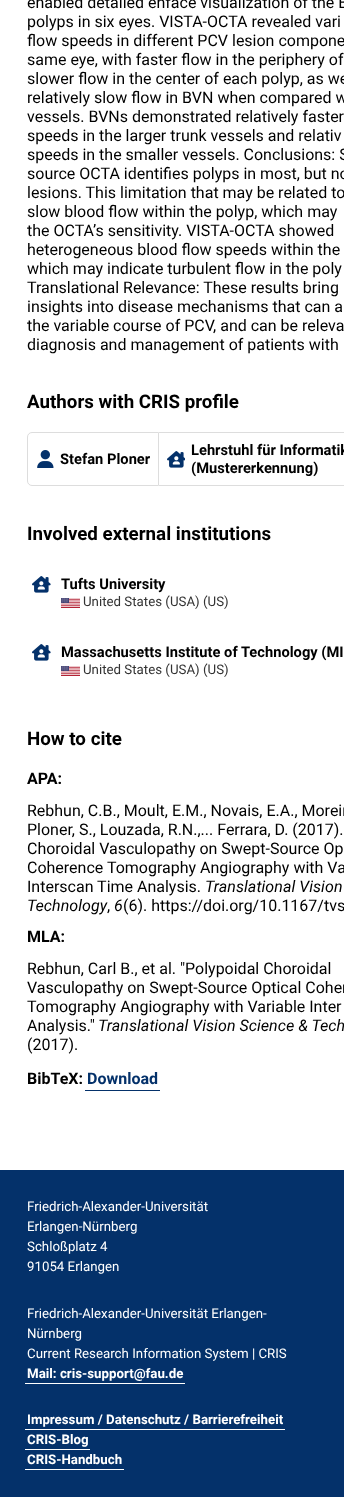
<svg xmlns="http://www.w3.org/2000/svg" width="344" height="1497">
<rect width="100%" height="100%" fill="#fff"/>
<text x="27" y="8" style="font-family:Roboto;font-size:16px;fill:#000">enabled detailed enface visualization of the B</text>
<text x="27" y="27" style="font-family:Roboto;font-size:16px;fill:#000">polyps in six eyes. VISTA-OCTA revealed vari</text>
<text x="27" y="46" style="font-family:Roboto;font-size:16px;fill:#000">flow speeds in different PCV lesion compone</text>
<text x="27" y="65" style="font-family:Roboto;font-size:16px;fill:#000">same eye, with faster flow in the periphery of</text>
<text x="27" y="84" style="font-family:Roboto;font-size:16px;fill:#000">slower flow in the center of each polyp, as we</text>
<text x="27" y="103" style="font-family:Roboto;font-size:16px;fill:#000">relatively slow flow in BVN when compared w</text>
<text x="27" y="122" style="font-family:Roboto;font-size:16px;fill:#000">vessels. BVNs demonstrated relatively faster</text>
<text x="27" y="141" style="font-family:Roboto;font-size:16px;fill:#000">speeds in the larger trunk vessels and relativ</text>
<text x="27" y="160" style="font-family:Roboto;font-size:16px;fill:#000">speeds in the smaller vessels. Conclusions: S</text>
<text x="27" y="179" style="font-family:Roboto;font-size:16px;fill:#000">source OCTA identifies polyps in most, but no</text>
<text x="27" y="198" style="font-family:Roboto;font-size:16px;fill:#000">lesions. This limitation that may be related to</text>
<text x="27" y="217" style="font-family:Roboto;font-size:16px;fill:#000">slow blood flow within the polyp, which may</text>
<text x="27" y="236" style="font-family:Roboto;font-size:16px;fill:#000">the OCTA’s sensitivity. VISTA-OCTA showed</text>
<text x="27" y="255" style="font-family:Roboto;font-size:16px;fill:#000">heterogeneous blood flow speeds within the</text>
<text x="27" y="274" style="font-family:Roboto;font-size:16px;fill:#000">which may indicate turbulent flow in the poly</text>
<text x="27" y="293" style="font-family:Roboto;font-size:16px;fill:#000">Translational Relevance: These results bring</text>
<text x="27" y="312" style="font-family:Roboto;font-size:16px;fill:#000">insights into disease mechanisms that can a</text>
<text x="27" y="331" style="font-family:Roboto;font-size:16px;fill:#000">the variable course of PCV, and can be releva</text>
<text x="27" y="350" style="font-family:Roboto;font-size:16px;fill:#000">diagnosis and management of patients with</text>
<text x="27" y="408" style="font-family:Roboto;font-size:18.75px;font-weight:bold;fill:#000">Authors with CRIS profile</text>
<path d="M32 432.5h126.5v53h-126.5c-2.5 0-4.5-2-4.5-4.5v-44c0-2.5 2-4.5 4.5-4.5z" fill="none" stroke="#ddd"/>
<image x="37" y="450" width="17" height="18" href="media/1.png"/>
<text x="60" y="464" style="font-family:Roboto;font-size:14.7px;font-weight:bold;fill:#000">Stefan Ploner</text>
<path d="M159 432h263c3 0 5 2 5 5v44c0 3-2 5-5 5h-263zm0 1h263c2 0 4 2 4 4v44c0 2-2 4-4 4h-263z" fill="#ddd" fill-rule="evenodd"/>
<image x="167" y="451" width="18" height="17" href="media/2.png"/>
<text x="191" y="455" style="font-family:Roboto;font-size:14.7px;font-weight:bold;fill:#000">Lehrstuhl für Informatik</text>
<text x="191" y="473" style="font-family:Roboto;font-size:14.7px;font-weight:bold;fill:#000">(Mustererkennung)</text>
<text x="27" y="540" style="font-family:Roboto;font-size:18.75px;font-weight:bold;fill:#000">Involved external institutions</text>
<image x="32" y="576" width="19" height="17" href="media/3.png"/>
<text x="61" y="589" style="font-family:Roboto;font-size:14.7px;font-weight:bold;fill:#000">Tufts University</text>
<image x="61" y="598" width="19" height="10" href="media/4.png"/>
<text x="83" y="606" style="font-family:Roboto;font-size:13.3px;fill:#333">United States (USA) (US)</text>
<image x="32" y="644" width="19" height="17" href="media/3.png"/>
<text x="61" y="657" style="font-family:Roboto;font-size:14.7px;font-weight:bold;fill:#000">Massachusetts Institute of Technology (MI</text>
<image x="61" y="666" width="19" height="10" href="media/4.png"/>
<text x="83" y="674" style="font-family:Roboto;font-size:13.3px;fill:#333">United States (USA) (US)</text>
<text x="27" y="745" style="font-family:Roboto;font-size:18.75px;font-weight:bold;fill:#000">How to cite</text>
<text x="27" y="784" style="font-family:Roboto;font-size:16px;font-weight:bold;fill:#000">APA:</text>
<text x="27" y="816" style="font-family:Roboto;font-size:16px;fill:#000">Rebhun, C.B., Moult, E.M., Novais, E.A., Moreir</text>
<text x="27" y="835" style="font-family:Roboto;font-size:16px;fill:#000">Ploner, S., Louzada, R.N.,... Ferrara, D. (2017).</text>
<text x="27" y="854" style="font-family:Roboto;font-size:16px;fill:#000">Choroidal Vasculopathy on Swept-Source Op</text>
<text x="27" y="873" style="font-family:Roboto;font-size:16px;fill:#000">Coherence Tomography Angiography with Va</text>
<text x="27" y="892" style="font-family:Roboto;font-size:16px;fill:#000">Interscan Time Analysis.</text>
<text x="205" y="892" style="font-family:Roboto;font-size:16px;font-style:italic;fill:#000">Translational Vision</text>
<text x="27" y="911" style="font-family:Roboto;font-size:16px;font-style:italic;fill:#000">Technology</text>
<text x="107" y="911" style="font-family:Roboto;font-size:16px;fill:#000">,</text>
<text x="114" y="911" style="font-family:Roboto;font-size:16px;font-style:italic;fill:#000">6</text>
<text x="123" y="911" style="font-family:Roboto;font-size:16px;fill:#000">(6). https://doi.org/10.1167/tvs</text>
<text x="27" y="942" style="font-family:Roboto;font-size:16px;font-weight:bold;fill:#000">MLA:</text>
<text x="27" y="974" style="font-family:Roboto;font-size:16px;fill:#000">Rebhun, Carl B., et al. "Polypoidal Choroidal</text>
<text x="27" y="993" style="font-family:Roboto;font-size:16px;fill:#000">Vasculopathy on Swept-Source Optical Coher</text>
<text x="27" y="1012" style="font-family:Roboto;font-size:16px;fill:#000">Tomography Angiography with Variable Inter</text>
<text x="27" y="1031" style="font-family:Roboto;font-size:16px;fill:#000">Analysis."</text>
<text x="98" y="1031" style="font-family:Roboto;font-size:16px;font-style:italic;fill:#000">Translational Vision Science &amp; Tech</text>
<text x="27" y="1050" style="font-family:Roboto;font-size:16px;fill:#000">(2017).</text>
<text x="27" y="1084" style="font-family:Roboto;font-size:16px;font-weight:bold;fill:#000">BibTeX:</text>
<text x="87" y="1084" style="font-family:Roboto;font-size:16px;font-weight:bold;fill:#04316a">Download</text>
<rect x="85" y="1090" width="75" height="1" fill="#04316a"/>
<rect y="1170" width="344" height="327" fill="#04316a"/>
<text x="27" y="1211" style="font-family:Roboto;font-size:13.3px;fill:#fff">Friedrich-Alexander-Universität</text>
<text x="27" y="1231" style="font-family:Roboto;font-size:13.3px;fill:#fff">Erlangen-Nürnberg</text>
<text x="27" y="1251" style="font-family:Roboto;font-size:13.3px;fill:#fff">Schloßplatz 4</text>
<text x="27" y="1271" style="font-family:Roboto;font-size:13.3px;fill:#fff">91054 Erlangen</text>
<text x="27" y="1318" style="font-family:Roboto;font-size:13.3px;fill:#fff">Friedrich-Alexander-Universität Erlangen-</text>
<text x="27" y="1338" style="font-family:Roboto;font-size:13.3px;fill:#fff">Nürnberg</text>
<text x="27" y="1358" style="font-family:Roboto;font-size:13.3px;fill:#fff">Current Research Information System | CRIS</text>
<text x="27" y="1378" style="font-family:Roboto;font-size:13.3px;font-weight:bold;fill:#fff">Mail: cris-support@fau.de</text>
<rect x="25" y="1383" width="160" height="1" fill="#fff"/>
<text x="27" y="1424" style="font-family:Roboto;font-size:13.3px;font-weight:bold;fill:#fff">Impressum / Datenschutz / Barrierefreiheit</text>
<rect x="25" y="1429" width="260" height="1" fill="#fff"/>
<text x="27" y="1444" style="font-family:Roboto;font-size:13.3px;font-weight:bold;fill:#fff">CRIS-Blog</text>
<rect x="25" y="1449" width="65" height="1" fill="#fff"/>
<text x="27" y="1464" style="font-family:Roboto;font-size:13.3px;font-weight:bold;fill:#fff">CRIS-Handbuch</text>
<rect x="25" y="1469" width="99" height="1" fill="#fff"/>
</svg>
